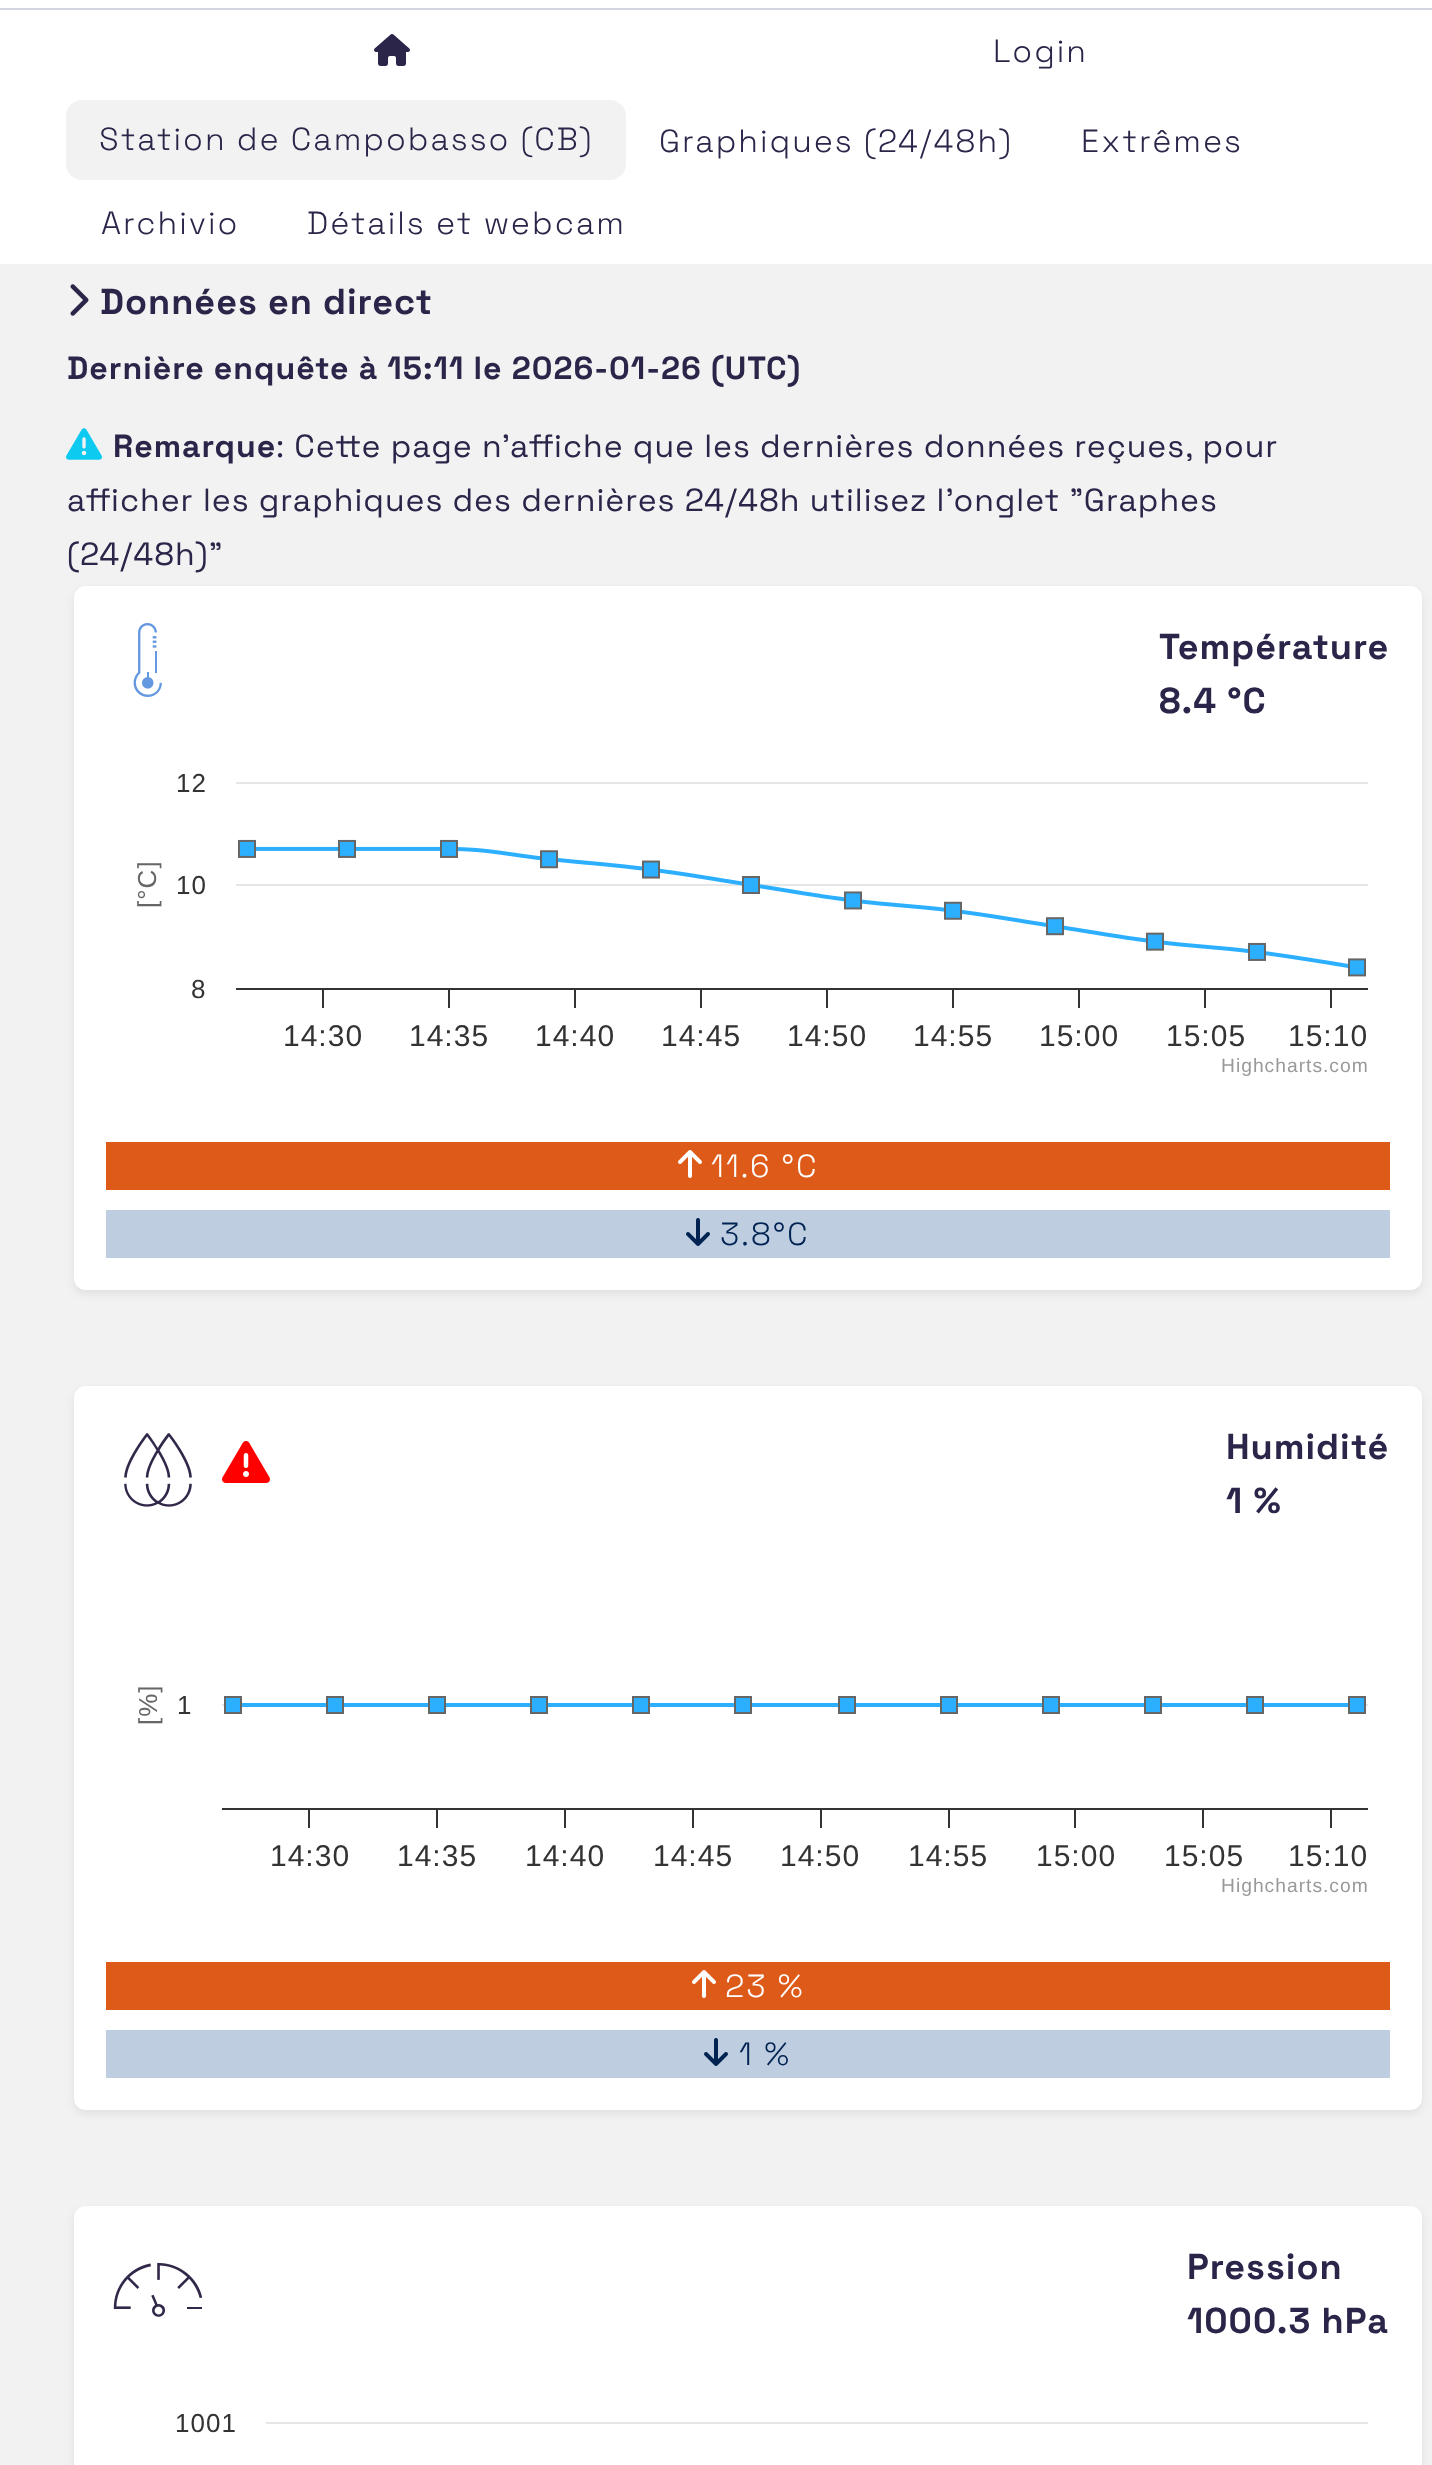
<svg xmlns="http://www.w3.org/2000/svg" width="1432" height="2465">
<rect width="100%" height="100%" fill="#fff"/>
<rect y="8" width="1432" height="2" fill="#d3d5e0"/>
<image x="374" y="34" width="36" height="32" href="media/1.png"/>
<text x="993" y="62" style="font-family:Space Grotesk;font-size:32px;font-weight:300;letter-spacing:2px;fill:#2a2549">Login</text>
<rect x="66" y="100" width="560" height="80" rx="16" fill="#f2f2f2"/>
<text x="99" y="150" style="font-family:Space Grotesk;font-size:32px;font-weight:300;letter-spacing:2px;fill:#2a2549">Station de Campobasso (CB)</text>
<text x="659" y="152" style="font-family:Space Grotesk;font-size:32px;font-weight:300;letter-spacing:2px;fill:#2a2549">Graphiques (24/48h)</text>
<text x="1081" y="152" style="font-family:Space Grotesk;font-size:32px;font-weight:300;letter-spacing:2px;fill:#2a2549">Extrêmes</text>
<text x="101" y="234" style="font-family:Space Grotesk;font-size:32px;font-weight:300;letter-spacing:2px;fill:#2a2549">Archivio</text>
<text x="307" y="234" style="font-family:Space Grotesk;font-size:32px;font-weight:300;letter-spacing:2px;fill:#2a2549">Détails et webcam</text>
<rect y="264" width="1432" height="2201" fill="#f2f2f2"/>
<image x="70" y="284" width="19" height="32" href="media/2.png"/>
<text x="100" y="314" style="font-family:Space Grotesk;font-size:36px;font-weight:bold;letter-spacing:1px;fill:#2a2549">Données en direct</text>
<text x="67" y="379" style="font-family:Space Grotesk;font-size:32px;font-weight:bold;letter-spacing:1px;fill:#2a2549">Dernière enquête à 15:11 le 2026-01-26 (UTC)</text>
<image x="66" y="428" width="36" height="32" href="media/3.png"/>
<text x="113" y="457" style="font-family:Space Grotesk;font-size:32px;font-weight:bold;letter-spacing:1px;fill:#2a2549">Remarque</text>
<text x="276" y="457" style="font-family:Space Grotesk;font-size:32px;letter-spacing:1px;fill:#2a2549">: Cette page n'affiche que les dernières données reçues, pour</text>
<text x="67" y="511" style="font-family:Space Grotesk;font-size:32px;letter-spacing:1px;fill:#2a2549">afficher les graphiques des dernières 24/48h utilisez l'onglet "Graphes</text>
<text x="67" y="565" style="font-family:Space Grotesk;font-size:32px;letter-spacing:1px;fill:#2a2549">(24/48h)"</text>
<rect x="74" y="590" width="1348" height="704" rx="12" fill="#00000012" filter="blur(4px)"/>
<rect x="74" y="586" width="1348" height="704" rx="12" fill="#fff"/>
<image x="133" y="623" width="29" height="74" href="media/4.png"/>
<text x="1159" y="659" style="font-family:Space Grotesk;font-size:36px;font-weight:bold;letter-spacing:1px;fill:#2a2549">Température</text>
<text x="1159" y="713" style="font-family:Space Grotesk;font-size:36px;font-weight:bold;letter-spacing:1px;fill:#2a2549">8.4 °C</text>
<text x="156" y="908" transform="rotate(-90 156 908)" style="font-family:Liberation Sans;font-size:26px;letter-spacing:1px;fill:#666">[°C]</text>
<text x="176" y="792" style="font-family:Liberation Sans;font-size:26px;letter-spacing:1px;fill:#333">12</text>
<image x="236" y="782" width="1132" height="226" href="media/5.png"/>
<text x="176" y="894" style="font-family:Liberation Sans;font-size:26px;letter-spacing:1px;fill:#333">10</text>
<text x="191" y="998" style="font-family:Liberation Sans;font-size:26px;letter-spacing:1px;fill:#333">8</text>
<text x="283" y="1046" style="font-family:Liberation Sans;font-size:30px;letter-spacing:1px;fill:#333">14:30</text>
<text x="409" y="1046" style="font-family:Liberation Sans;font-size:30px;letter-spacing:1px;fill:#333">14:35</text>
<text x="535" y="1046" style="font-family:Liberation Sans;font-size:30px;letter-spacing:1px;fill:#333">14:40</text>
<text x="661" y="1046" style="font-family:Liberation Sans;font-size:30px;letter-spacing:1px;fill:#333">14:45</text>
<text x="787" y="1046" style="font-family:Liberation Sans;font-size:30px;letter-spacing:1px;fill:#333">14:50</text>
<text x="913" y="1046" style="font-family:Liberation Sans;font-size:30px;letter-spacing:1px;fill:#333">14:55</text>
<text x="1039" y="1046" style="font-family:Liberation Sans;font-size:30px;letter-spacing:1px;fill:#333">15:00</text>
<text x="1166" y="1046" style="font-family:Liberation Sans;font-size:30px;letter-spacing:1px;fill:#333">15:05</text>
<text x="1288" y="1046" style="font-family:Liberation Sans;font-size:30px;letter-spacing:1px;fill:#333">15:10</text>
<text x="1221" y="1072" style="font-family:Liberation Sans;font-size:19.25px;letter-spacing:1px;fill:#999">Highcharts.com</text>
<rect x="106" y="1142" width="1284" height="48" fill="#de5a18"/>
<image x="678" y="1150" width="24" height="28" href="media/6.png"/>
<text x="711" y="1177" style="font-family:Space Grotesk;font-size:32px;font-weight:300;letter-spacing:2px;fill:#fff">11.6 °C</text>
<rect x="106" y="1210" width="1284" height="48" fill="#becee0"/>
<image x="686" y="1218" width="24" height="28" href="media/7.png"/>
<text x="720" y="1245" style="font-family:Space Grotesk;font-size:32px;font-weight:300;letter-spacing:2px;fill:#002352">3.8°C</text>
<rect x="74" y="1390" width="1348" height="724" rx="12" fill="#00000012" filter="blur(4px)"/>
<rect x="74" y="1386" width="1348" height="724" rx="12" fill="#fff"/>
<image x="124" y="1433" width="68" height="74" href="media/8.png"/>
<image x="222" y="1441" width="48" height="42" href="media/9.png"/>
<text x="1226" y="1459" style="font-family:Space Grotesk;font-size:36px;font-weight:bold;letter-spacing:1px;fill:#2a2549">Humidité</text>
<text x="1226" y="1513" style="font-family:Space Grotesk;font-size:36px;font-weight:bold;letter-spacing:1px;fill:#2a2549">1 %</text>
<text x="157" y="1725" transform="rotate(-90 157 1725)" style="font-family:Liberation Sans;font-size:26px;letter-spacing:1px;fill:#666">[%]</text>
<text x="177" y="1714" style="font-family:Liberation Sans;font-size:26px;letter-spacing:1px;fill:#333">1</text>
<image x="222" y="1696" width="1146" height="132" href="media/10.png"/>
<text x="270" y="1866" style="font-family:Liberation Sans;font-size:30px;letter-spacing:1px;fill:#333">14:30</text>
<text x="397" y="1866" style="font-family:Liberation Sans;font-size:30px;letter-spacing:1px;fill:#333">14:35</text>
<text x="525" y="1866" style="font-family:Liberation Sans;font-size:30px;letter-spacing:1px;fill:#333">14:40</text>
<text x="653" y="1866" style="font-family:Liberation Sans;font-size:30px;letter-spacing:1px;fill:#333">14:45</text>
<text x="780" y="1866" style="font-family:Liberation Sans;font-size:30px;letter-spacing:1px;fill:#333">14:50</text>
<text x="908" y="1866" style="font-family:Liberation Sans;font-size:30px;letter-spacing:1px;fill:#333">14:55</text>
<text x="1036" y="1866" style="font-family:Liberation Sans;font-size:30px;letter-spacing:1px;fill:#333">15:00</text>
<text x="1164" y="1866" style="font-family:Liberation Sans;font-size:30px;letter-spacing:1px;fill:#333">15:05</text>
<text x="1288" y="1866" style="font-family:Liberation Sans;font-size:30px;letter-spacing:1px;fill:#333">15:10</text>
<text x="1221" y="1892" style="font-family:Liberation Sans;font-size:19.25px;letter-spacing:1px;fill:#999">Highcharts.com</text>
<rect x="106" y="1962" width="1284" height="48" fill="#de5a18"/>
<image x="692" y="1970" width="24" height="28" href="media/6.png"/>
<text x="725" y="1997" style="font-family:Space Grotesk;font-size:32px;font-weight:300;letter-spacing:2px;fill:#fff">23 %</text>
<rect x="106" y="2030" width="1284" height="48" fill="#becee0"/>
<image x="704" y="2038" width="24" height="28" href="media/7.png"/>
<text x="739" y="2065" style="font-family:Space Grotesk;font-size:32px;font-weight:300;letter-spacing:2px;fill:#002352">1 %</text>
<rect x="74" y="2210" width="1348" height="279" rx="12" fill="#00000012" filter="blur(4px)"/>
<rect x="74" y="2206" width="1348" height="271" rx="12" fill="#fff"/>
<image x="113" y="2262" width="90" height="55" href="media/11.png"/>
<text x="1187" y="2279" style="font-family:Space Grotesk;font-size:36px;font-weight:bold;letter-spacing:1px;fill:#2a2549">Pression</text>
<text x="1187" y="2333" style="font-family:Space Grotesk;font-size:36px;font-weight:bold;letter-spacing:1px;fill:#2a2549">1000.3 hPa</text>
<text x="175" y="2432" style="font-family:Liberation Sans;font-size:26px;letter-spacing:1px;fill:#333">1001</text>
<rect x="266" y="2422" width="1102" height="2" fill="#e6e6e6"/>
</svg>
